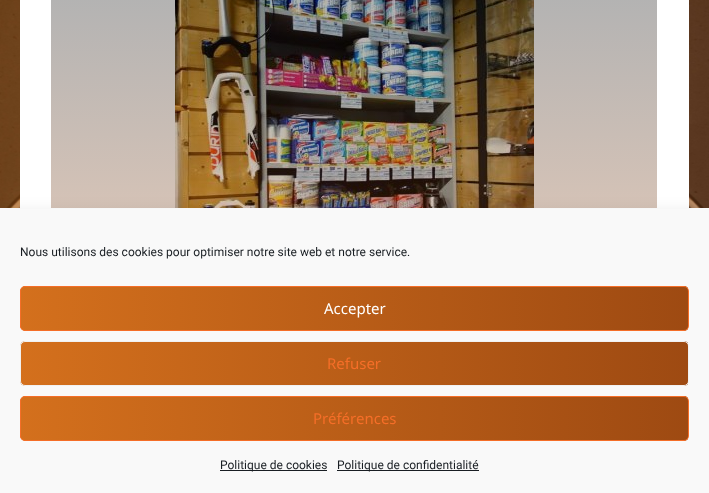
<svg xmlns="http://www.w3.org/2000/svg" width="709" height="493">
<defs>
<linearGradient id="g1" gradientUnits="userSpaceOnUse" x1="354" y1="-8" x2="354" y2="292"><stop offset="0" stop-color="#000" stop-opacity="0.3"/><stop offset="1" stop-color="#9e4a12" stop-opacity="0.3"/></linearGradient>
<clipPath id="clip1"><rect x="20" y="286" width="669" height="45" rx="5"/></clipPath>
<linearGradient id="g2" gradientUnits="userSpaceOnUse" x1="-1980" y1="309" x2="688" y2="308"><stop offset="0" stop-color="#e57c20"/><stop offset="0.33" stop-color="#9e4a12"/><stop offset="0.67" stop-color="#e57c20"/><stop offset="1" stop-color="#9e4a12"/></linearGradient>
<clipPath id="clip2"><rect x="20" y="341" width="669" height="45" rx="5"/></clipPath>
<linearGradient id="g3" gradientUnits="userSpaceOnUse" x1="-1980" y1="364" x2="688" y2="363"><stop offset="0" stop-color="#e57c20"/><stop offset="0.33" stop-color="#9e4a12"/><stop offset="0.67" stop-color="#e57c20"/><stop offset="1" stop-color="#9e4a12"/></linearGradient>
<clipPath id="clip3"><rect x="20" y="396" width="669" height="45" rx="5"/></clipPath>
<linearGradient id="g4" gradientUnits="userSpaceOnUse" x1="-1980" y1="419" x2="688" y2="418"><stop offset="0" stop-color="#e57c20"/><stop offset="0.33" stop-color="#9e4a12"/><stop offset="0.67" stop-color="#e57c20"/><stop offset="1" stop-color="#9e4a12"/></linearGradient>
</defs>
<rect width="100%" height="100%" fill="#fff"/>
<image x="0" y="0" width="709" height="208" href="media/1.png"/>
<rect x="20" width="669" height="208" fill="#fff"/>
<image x="175" y="0" width="359" height="208" href="media/2.png"/>
<rect x="51" width="606" height="208" fill="url(#g1)"/>
<rect y="218" width="709" height="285" fill="#00000030" filter="blur(10px)"/>
<rect y="209" width="709" height="284" fill="#f9f9f9"/>
<text x="20" y="256" style="font-family:Roboto;font-size:12px;fill:#191e23">Nous utilisons des cookies pour optimiser notre site web et notre service.</text>
<g clip-path="url(#clip1)">
<path d="M25 286h663v45h-663c-3 0-5-2-5-5v-35c0-3 2-5 5-5z" fill="url(#g2)"/>
</g>
<rect x="20.5" y="286.5" width="668" height="44" rx="4.5" fill="none" stroke="#f56e28"/>
<text x="324" y="314" style="font-family:Noto Sans;font-size:15px;fill:#fff">Accepter</text>
<g clip-path="url(#clip2)">
<path d="M25 341h663v45h-663c-3 0-5-2-5-5v-35c0-3 2-5 5-5z" fill="url(#g3)"/>
</g>
<rect x="20.5" y="341.5" width="668" height="44" rx="4.5" fill="none" stroke="#f1f1f1"/>
<text x="327" y="369" style="font-family:Noto Sans;font-size:15px;fill:#f56e28">Refuser</text>
<g clip-path="url(#clip3)">
<path d="M25 396h663v45h-663c-3 0-5-2-5-5v-35c0-3 2-5 5-5z" fill="url(#g4)"/>
</g>
<rect x="20.5" y="396.5" width="668" height="44" rx="4.5" fill="none" stroke="#f56e28"/>
<text x="313" y="424" style="font-family:Noto Sans;font-size:15px;fill:#f56e28">Préférences</text>
<rect x="220" y="470" width="107" height="1" fill="#191e23"/>
<text x="220" y="469" style="font-family:Roboto;font-size:12px;fill:#191e23">Politique de cookies</text>
<rect x="337" y="470" width="142" height="1" fill="#191e23"/>
<text x="337" y="469" style="font-family:Roboto;font-size:12px;fill:#191e23">Politique de confidentialité</text>
</svg>
